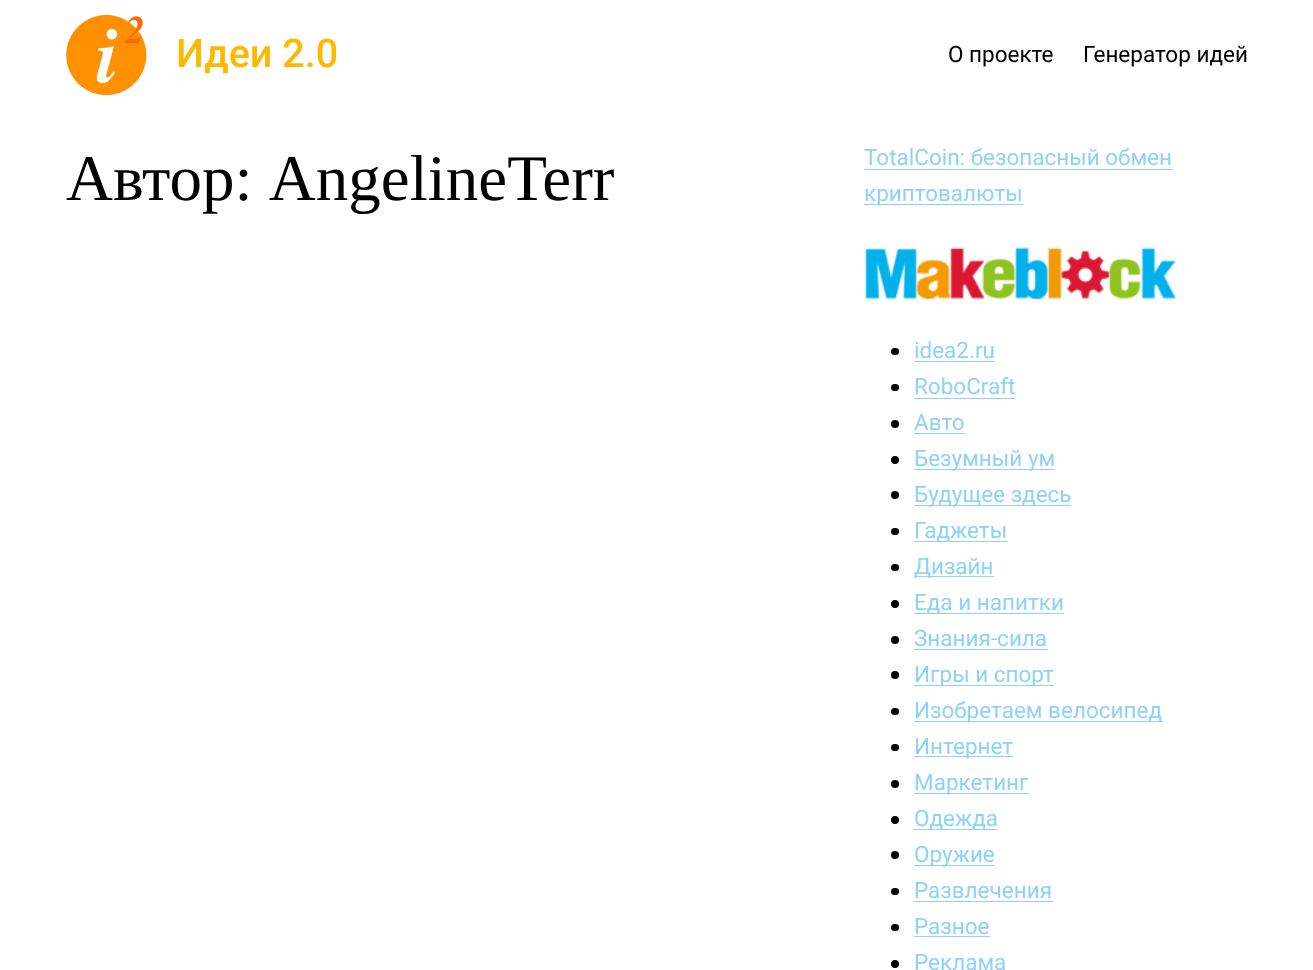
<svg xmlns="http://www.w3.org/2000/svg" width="1313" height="970">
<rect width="100%" height="100%" fill="#fff"/>
<image x="66" y="15" width="81" height="80" href="media/1.png"/>
<text x="176" y="67" style="font-family:Roboto;font-size:39.5px;font-weight:500;fill:#fcb900">Идеи 2.0</text>
<text x="948" y="62" style="font-family:Roboto;font-size:22.5px;fill:#000">О проекте</text>
<text x="1083" y="62" style="font-family:Roboto;font-size:22.5px;fill:#000">Генератор идей</text>
<text x="66" y="200" style="font-family:Liberation Serif;font-size:65px;fill:#000">Автор: AngelineTerr</text>
<text x="864" y="165" style="font-family:Roboto;font-size:22.5px;fill:#8ed1fc">TotalCoin: безопасный обмен</text>
<rect x="864" y="169" width="309" height="1" fill="#8ed1fc"/>
<rect x="864" y="204" width="159" height="1" fill="#8ed1fc"/>
<text x="864" y="201" style="font-family:Roboto;font-size:22.5px;fill:#8ed1fc">криптовалюты</text>
<image x="864" y="247" width="313" height="52" href="media/2.png"/>
<rect x="891" y="348" width="8" height="7" rx="3.5" fill="#000"/>
<text x="914" y="358" style="font-family:Roboto;font-size:22.5px;fill:#8ed1fc">idea2.ru</text>
<rect x="914" y="361" width="81" height="1" fill="#8ed1fc"/>
<rect x="891" y="384" width="8" height="7" rx="3.5" fill="#000"/>
<text x="914" y="394" style="font-family:Roboto;font-size:22.5px;fill:#8ed1fc">RoboCraft</text>
<rect x="914" y="398" width="101" height="1" fill="#8ed1fc"/>
<circle cx="895" cy="424" r="4" fill="#000"/>
<text x="914" y="430" style="font-family:Roboto;font-size:22.5px;fill:#8ed1fc">Авто</text>
<rect x="914" y="433" width="51" height="1" fill="#8ed1fc"/>
<circle cx="895" cy="460" r="4" fill="#000"/>
<rect x="914" y="469" width="141" height="1" fill="#8ed1fc"/>
<text x="914" y="466" style="font-family:Roboto;font-size:22.5px;fill:#8ed1fc">Безумный ум</text>
<circle cx="895" cy="495" r="4" fill="#000"/>
<rect x="914" y="505" width="157" height="1" fill="#8ed1fc"/>
<text x="914" y="502" style="font-family:Roboto;font-size:22.5px;fill:#8ed1fc">Будущее здесь</text>
<rect x="891" y="528" width="8" height="7" rx="3.5" fill="#000"/>
<rect x="914" y="541" width="94" height="1" fill="#8ed1fc"/>
<text x="914" y="538" style="font-family:Roboto;font-size:22.5px;fill:#8ed1fc">Гаджеты</text>
<rect x="891" y="564" width="8" height="7" rx="3.5" fill="#000"/>
<rect x="914" y="576" width="80" height="1" fill="#8ed1fc"/>
<text x="914" y="574" style="font-family:Roboto;font-size:22.5px;fill:#8ed1fc">Дизайн</text>
<circle cx="895" cy="604" r="4" fill="#000"/>
<rect x="914" y="613" width="150" height="1" fill="#8ed1fc"/>
<text x="914" y="610" style="font-family:Roboto;font-size:22.5px;fill:#8ed1fc">Еда и напитки</text>
<circle cx="895" cy="640" r="4" fill="#000"/>
<text x="914" y="646" style="font-family:Roboto;font-size:22.5px;fill:#8ed1fc">Знания-сила</text>
<rect x="914" y="649" width="134" height="1" fill="#8ed1fc"/>
<circle cx="895" cy="675" r="4" fill="#000"/>
<rect x="914" y="685" width="140" height="1" fill="#8ed1fc"/>
<text x="914" y="682" style="font-family:Roboto;font-size:22.5px;fill:#8ed1fc">Игры и спорт</text>
<rect x="891" y="708" width="8" height="7" rx="3.5" fill="#000"/>
<rect x="914" y="721" width="249" height="1" fill="#8ed1fc"/>
<text x="914" y="718" style="font-family:Roboto;font-size:22.5px;fill:#8ed1fc">Изобретаем велосипед</text>
<rect x="891" y="744" width="8" height="7" rx="3.5" fill="#000"/>
<rect x="914" y="756" width="99" height="1" fill="#8ed1fc"/>
<text x="914" y="754" style="font-family:Roboto;font-size:22.5px;fill:#8ed1fc">Интернет</text>
<circle cx="895" cy="784" r="4" fill="#000"/>
<rect x="914" y="793" width="115" height="1" fill="#8ed1fc"/>
<text x="914" y="790" style="font-family:Roboto;font-size:22.5px;fill:#8ed1fc">Маркетинг</text>
<circle cx="895" cy="820" r="4" fill="#000"/>
<rect x="914" y="829" width="84" height="1" fill="#8ed1fc"/>
<text x="914" y="826" style="font-family:Roboto;font-size:22.5px;fill:#8ed1fc">Одежда</text>
<circle cx="895" cy="855" r="4" fill="#000"/>
<rect x="914" y="865" width="81" height="1" fill="#8ed1fc"/>
<text x="914" y="862" style="font-family:Roboto;font-size:22.5px;fill:#8ed1fc">Оружие</text>
<rect x="891" y="888" width="8" height="7" rx="3.5" fill="#000"/>
<text x="914" y="898" style="font-family:Roboto;font-size:22.5px;fill:#8ed1fc">Развлечения</text>
<rect x="914" y="901" width="139" height="1" fill="#8ed1fc"/>
<rect x="891" y="924" width="8" height="7" rx="3.5" fill="#000"/>
<text x="914" y="934" style="font-family:Roboto;font-size:22.5px;fill:#8ed1fc">Разное</text>
<rect x="914" y="936" width="76" height="1" fill="#8ed1fc"/>
<circle cx="895" cy="964" r="4" fill="#000"/>
<text x="914" y="970" style="font-family:Roboto;font-size:22.5px;fill:#8ed1fc">Реклама</text>
</svg>
